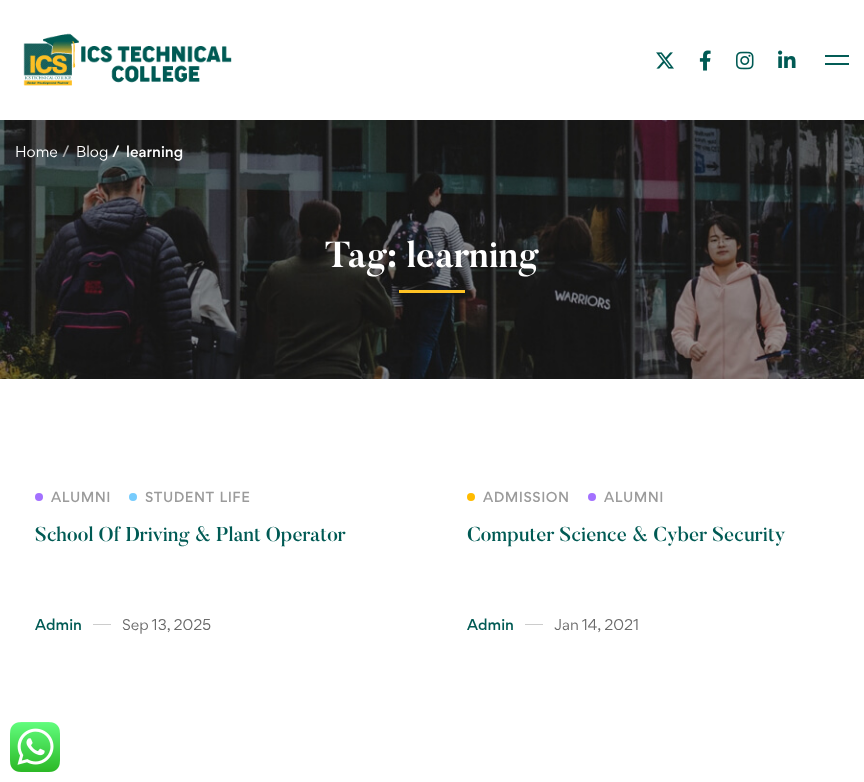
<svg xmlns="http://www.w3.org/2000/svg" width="864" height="782">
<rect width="100%" height="100%" fill="#fff"/>
<image x="23" y="33" width="209" height="53" href="media/1.png"/>
<image x="656" y="52" width="18" height="17" href="media/2.png"/>
<image x="699" y="50" width="12" height="21" href="media/3.png"/>
<image x="736" y="51" width="18" height="19" href="media/4.png"/>
<image x="778" y="50" width="18" height="18" href="media/5.png"/>
<rect x="825" y="55" width="24" height="2" fill="#035c56"/>
<rect x="825" y="63" width="24" height="2" fill="#035c56"/>
<image x="0" y="120" width="864" height="259" href="media/6.png"/>
<text x="15" y="157" style="font-family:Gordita;font-size:14px;fill:#fff">Home</text>
<text x="62" y="157" style="font-family:Gordita;font-size:14px;font-weight:500;fill:#ababab">/</text>
<text x="76" y="157" style="font-family:Gordita;font-size:14px;fill:#fff">Blog</text>
<text x="112" y="157" style="font-family:Gordita;font-size:14px;font-weight:500;fill:#fff">/</text>
<text x="126" y="157" style="font-family:Gordita;font-size:14px;font-weight:500;fill:#fff">learning</text>
<text x="325" y="267" style="font-family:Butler;font-size:36px;font-weight:bold;fill:#fff">Tag: learning</text>
<rect x="399" y="290" width="66" height="3" fill="#fec224"/>
<circle cx="39" cy="497" r="4" fill="#a371ff"/>
<text x="51" y="502" style="font-family:Gordita;font-size:13px;font-weight:500;letter-spacing:0.5px;fill:#9b9b9b">ALUMNI</text>
<circle cx="133" cy="497" r="4" fill="#77ccfd"/>
<text x="145" y="502" word-spacing="1" style="font-family:Gordita;font-size:13px;font-weight:500;letter-spacing:0.5px;fill:#9b9b9b">STUDENT LIFE</text>
<text x="35" y="541" style="font-family:Butler;font-size:20px;font-weight:500;fill:#005a54">School Of Driving &amp; Plant Operator</text>
<text x="35" y="630" style="font-family:Gordita;font-size:14px;font-weight:500;fill:#005a54">Admin</text>
<rect x="93" y="624" width="18" height="1" fill="#ccc"/>
<text x="122" y="630" word-spacing="-1" style="font-family:Gordita;font-size:14px;fill:#696969">Sep 13, 2025</text>
<circle cx="471" cy="497" r="4" fill="#fb0"/>
<text x="483" y="502" style="font-family:Gordita;font-size:13px;font-weight:500;letter-spacing:0.5px;fill:#9b9b9b">ADMISSION</text>
<circle cx="592" cy="497" r="4" fill="#a371ff"/>
<text x="604" y="502" style="font-family:Gordita;font-size:13px;font-weight:500;letter-spacing:0.5px;fill:#9b9b9b">ALUMNI</text>
<text x="467" y="541" style="font-family:Butler;font-size:20px;font-weight:500;fill:#005a54">Computer Science &amp; Cyber Security</text>
<text x="467" y="630" style="font-family:Gordita;font-size:14px;font-weight:500;fill:#005a54">Admin</text>
<rect x="525" y="624" width="18" height="1" fill="#ccc"/>
<text x="554" y="630" word-spacing="-1" style="font-family:Gordita;font-size:14px;fill:#696969">Jan 14, 2021</text>
<image x="10" y="722" width="50" height="50" href="media/7.png"/>
</svg>
